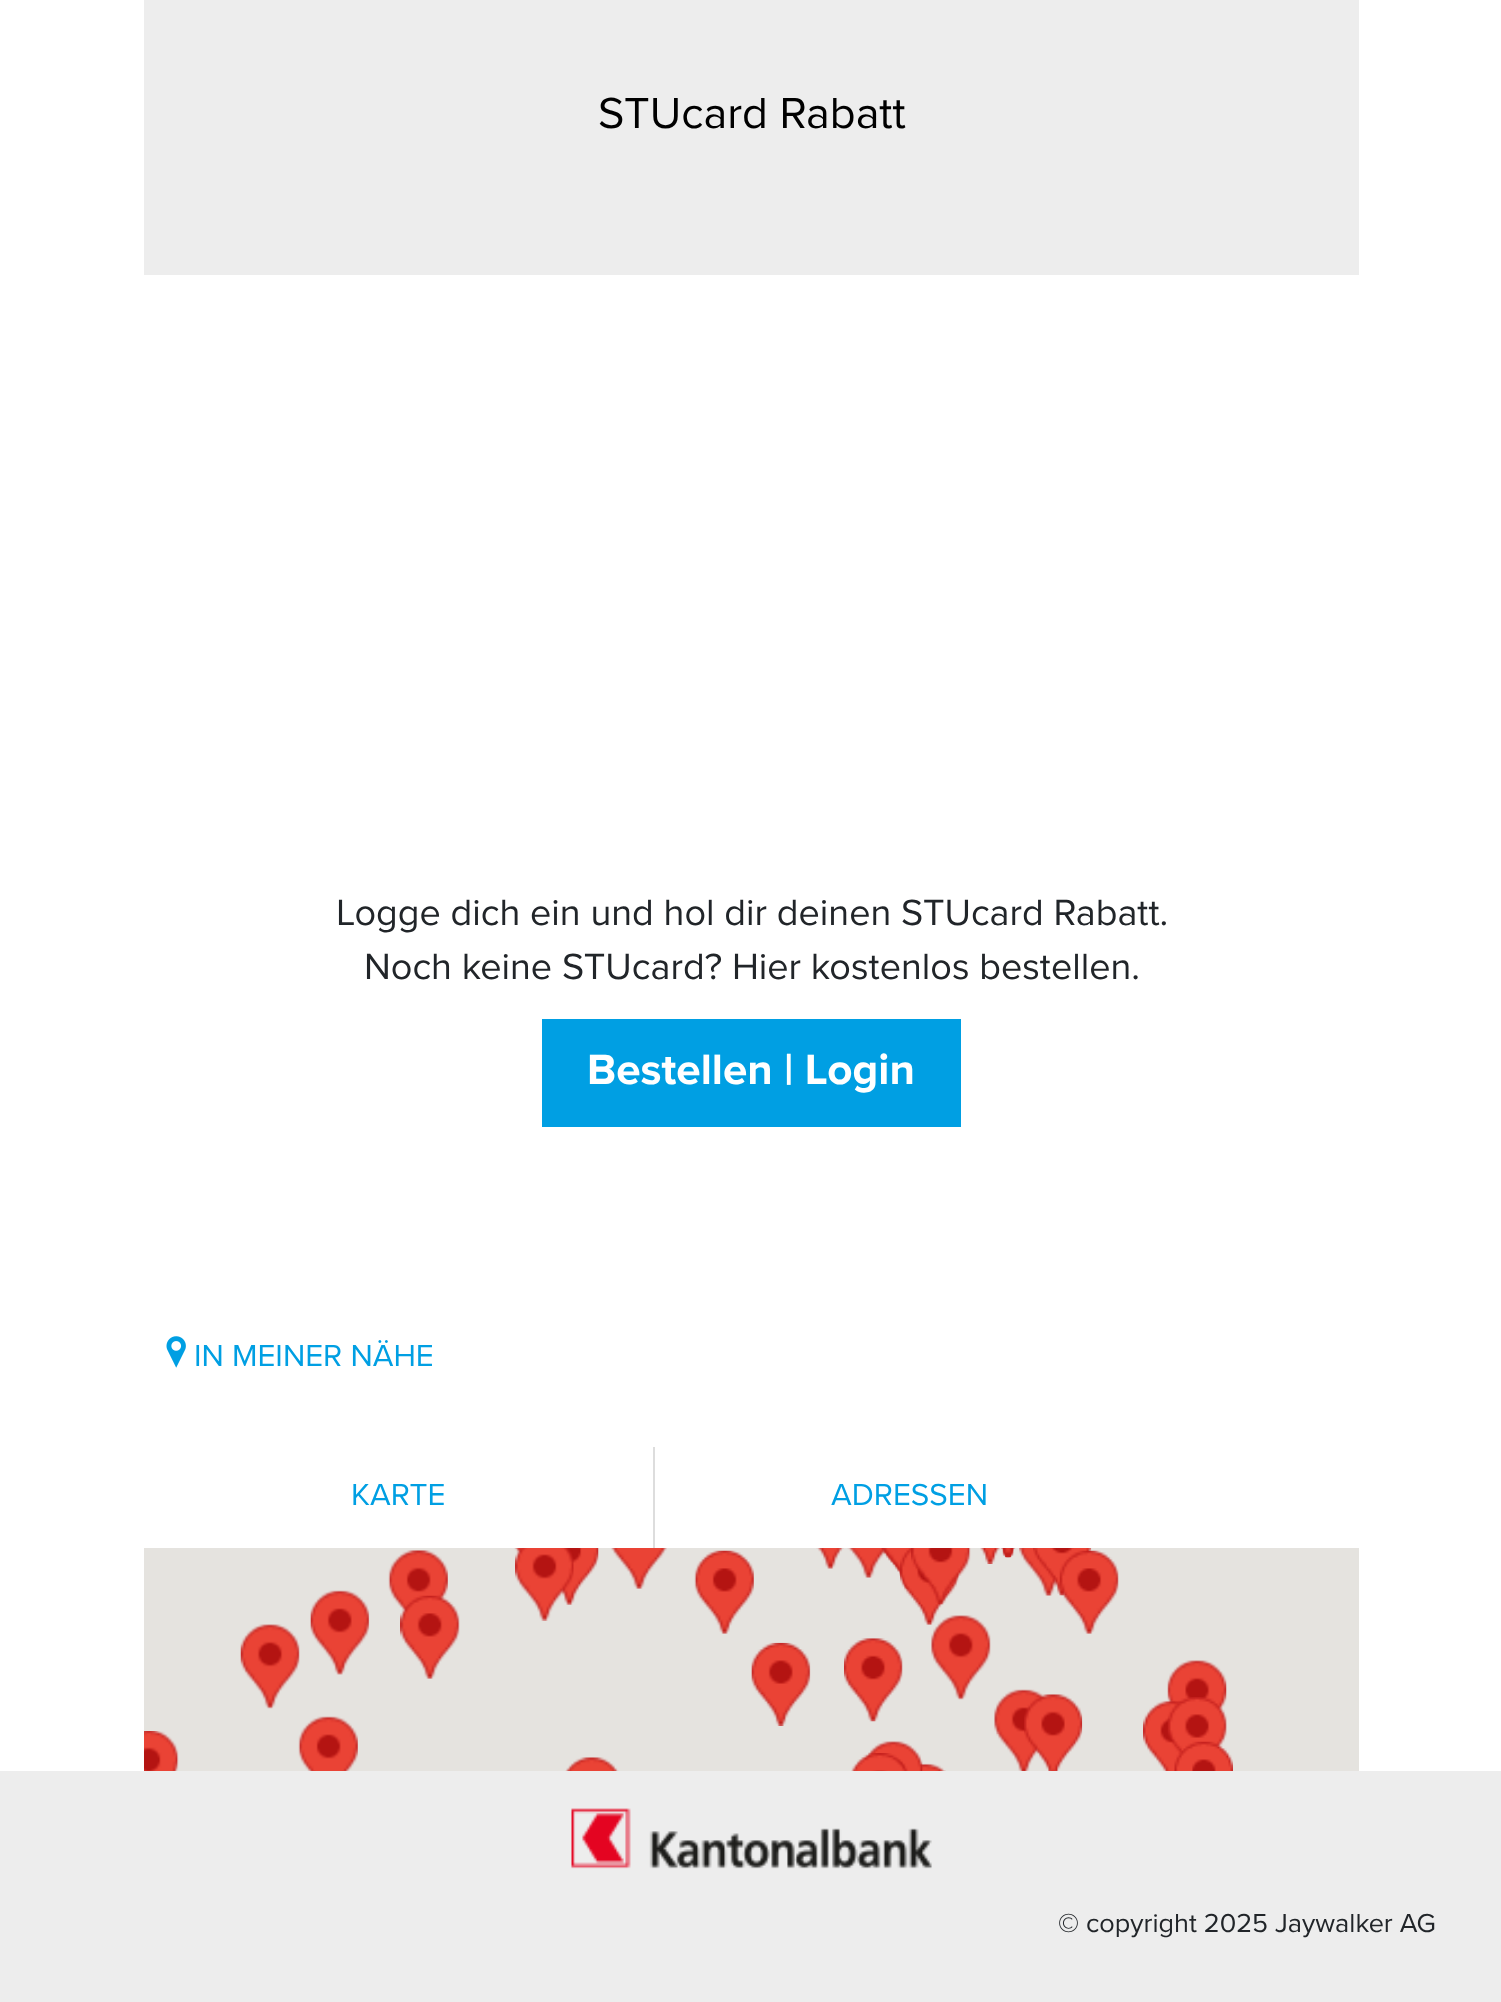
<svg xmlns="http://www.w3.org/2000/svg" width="1501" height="2002">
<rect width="100%" height="100%" fill="#fff"/>
<rect x="144" width="1215" height="275" fill="#ededed"/>
<text x="598" y="128" style="font-family:Proxima Nova;font-size:45px;fill:#000">STUcard Rabatt</text>
<text x="336" y="925" style="font-family:Proxima Nova;font-size:37.8px;fill:#212529">Logge dich ein und hol dir deinen STUcard Rabatt.</text>
<text x="364" y="979" style="font-family:Proxima Nova;font-size:37.8px;fill:#212529">Noch keine STUcard? Hier kostenlos bestellen.</text>
<rect x="542" y="1019" width="419" height="108" fill="#009fe3"/>
<text x="587" y="1084" style="font-family:Proxima Nova;font-size:44px;font-weight:bold;fill:#fff">Bestellen | Login</text>
<image x="166" y="1336" width="20" height="32" href="media/1.png"/>
<text x="194" y="1366" style="font-family:Proxima Nova;font-size:31.5px;fill:#009fe3">IN MEINER NÄHE</text>
<rect x="653" y="1447" width="2" height="101" fill="#ddd"/>
<text x="351" y="1505" style="font-family:Proxima Nova;font-size:31.5px;fill:#009fe3">KARTE</text>
<text x="831" y="1505" style="font-family:Proxima Nova;font-size:31.5px;fill:#009fe3">ADRESSEN</text>
<rect x="144" y="1548" width="1215" height="223" fill="#e5e3df"/>
<image x="514" y="1548" width="12" height="8" href="media/2.png"/>
<image x="560" y="1548" width="39" height="57" href="media/4.png"/>
<image x="515" y="1548" width="59" height="73" href="media/3.png"/>
<image x="611" y="1548" width="56" height="41" href="media/5.png"/>
<image x="825" y="1553" width="11" height="3" href="media/24.png"/>
<image x="816" y="1548" width="28" height="21" href="media/6.png"/>
<image x="847" y="1548" width="41" height="30" href="media/7.png"/>
<image x="881" y="1548" width="29" height="41" href="media/8.png"/>
<image x="882" y="1548" width="28" height="41" href="media/10.png"/>
<image x="881" y="1548" width="34" height="42" href="media/9.png"/>
<image x="931" y="1615" width="60" height="85" href="media/31.png"/>
<image x="900" y="1548" width="59" height="77" href="media/11.png"/>
<image x="911" y="1548" width="60" height="57" href="media/12.png"/>
<image x="980" y="1548" width="20" height="16" href="media/13.png"/>
<image x="1001" y="1548" width="15" height="10" href="media/14.png"/>
<image x="1001" y="1548" width="14" height="10" href="media/15.png"/>
<image x="1001" y="1548" width="14" height="10" href="media/16.png"/>
<image x="1001" y="1548" width="14" height="10" href="media/17.png"/>
<image x="1003" y="1548" width="11" height="9" href="media/18.png"/>
<image x="1003" y="1548" width="11" height="9" href="media/19.png"/>
<image x="1019" y="1548" width="39" height="48" href="media/20.png"/>
<image x="388" y="1550" width="60" height="65" href="media/21.png"/>
<image x="694" y="1550" width="60" height="84" href="media/22.png"/>
<image x="1033" y="1548" width="59" height="48" href="media/23.png"/>
<image x="1059" y="1550" width="60" height="84" href="media/25.png"/>
<image x="240" y="1624" width="60" height="85" href="media/26.png"/>
<image x="310" y="1590" width="60" height="85" href="media/27.png"/>
<image x="400" y="1595" width="60" height="84" href="media/28.png"/>
<image x="751" y="1642" width="60" height="84" href="media/29.png"/>
<image x="844" y="1638" width="59" height="84" href="media/30.png"/>
<image x="994" y="1689" width="52" height="82" href="media/32.png"/>
<image x="1024" y="1694" width="59" height="77" href="media/33.png"/>
<image x="1167" y="1660" width="60" height="52" href="media/34.png"/>
<image x="144" y="1732" width="2" height="2" href="media/39.png"/>
<image x="144" y="1731" width="35" height="40" href="media/35.png"/>
<image x="298" y="1716" width="60" height="55" href="media/36.png"/>
<image x="1143" y="1700" width="42" height="71" href="media/37.png"/>
<image x="1167" y="1697" width="60" height="59" href="media/38.png"/>
<image x="919" y="1763" width="27" height="8" href="media/44.png"/>
<image x="864" y="1741" width="59" height="30" href="media/40.png"/>
<image x="1174" y="1741" width="59" height="30" href="media/41.png"/>
<image x="565" y="1757" width="54" height="14" href="media/42.png"/>
<image x="851" y="1753" width="58" height="18" href="media/43.png"/>
<rect y="1771" width="1501" height="231" fill="#ededed"/>
<image x="571" y="1808" width="361" height="61" href="media/45.png"/>
<text x="1058" y="1932" style="font-family:Proxima Nova;font-size:27px;fill:#212529">© copyright 2025 Jaywalker AG</text>
</svg>
